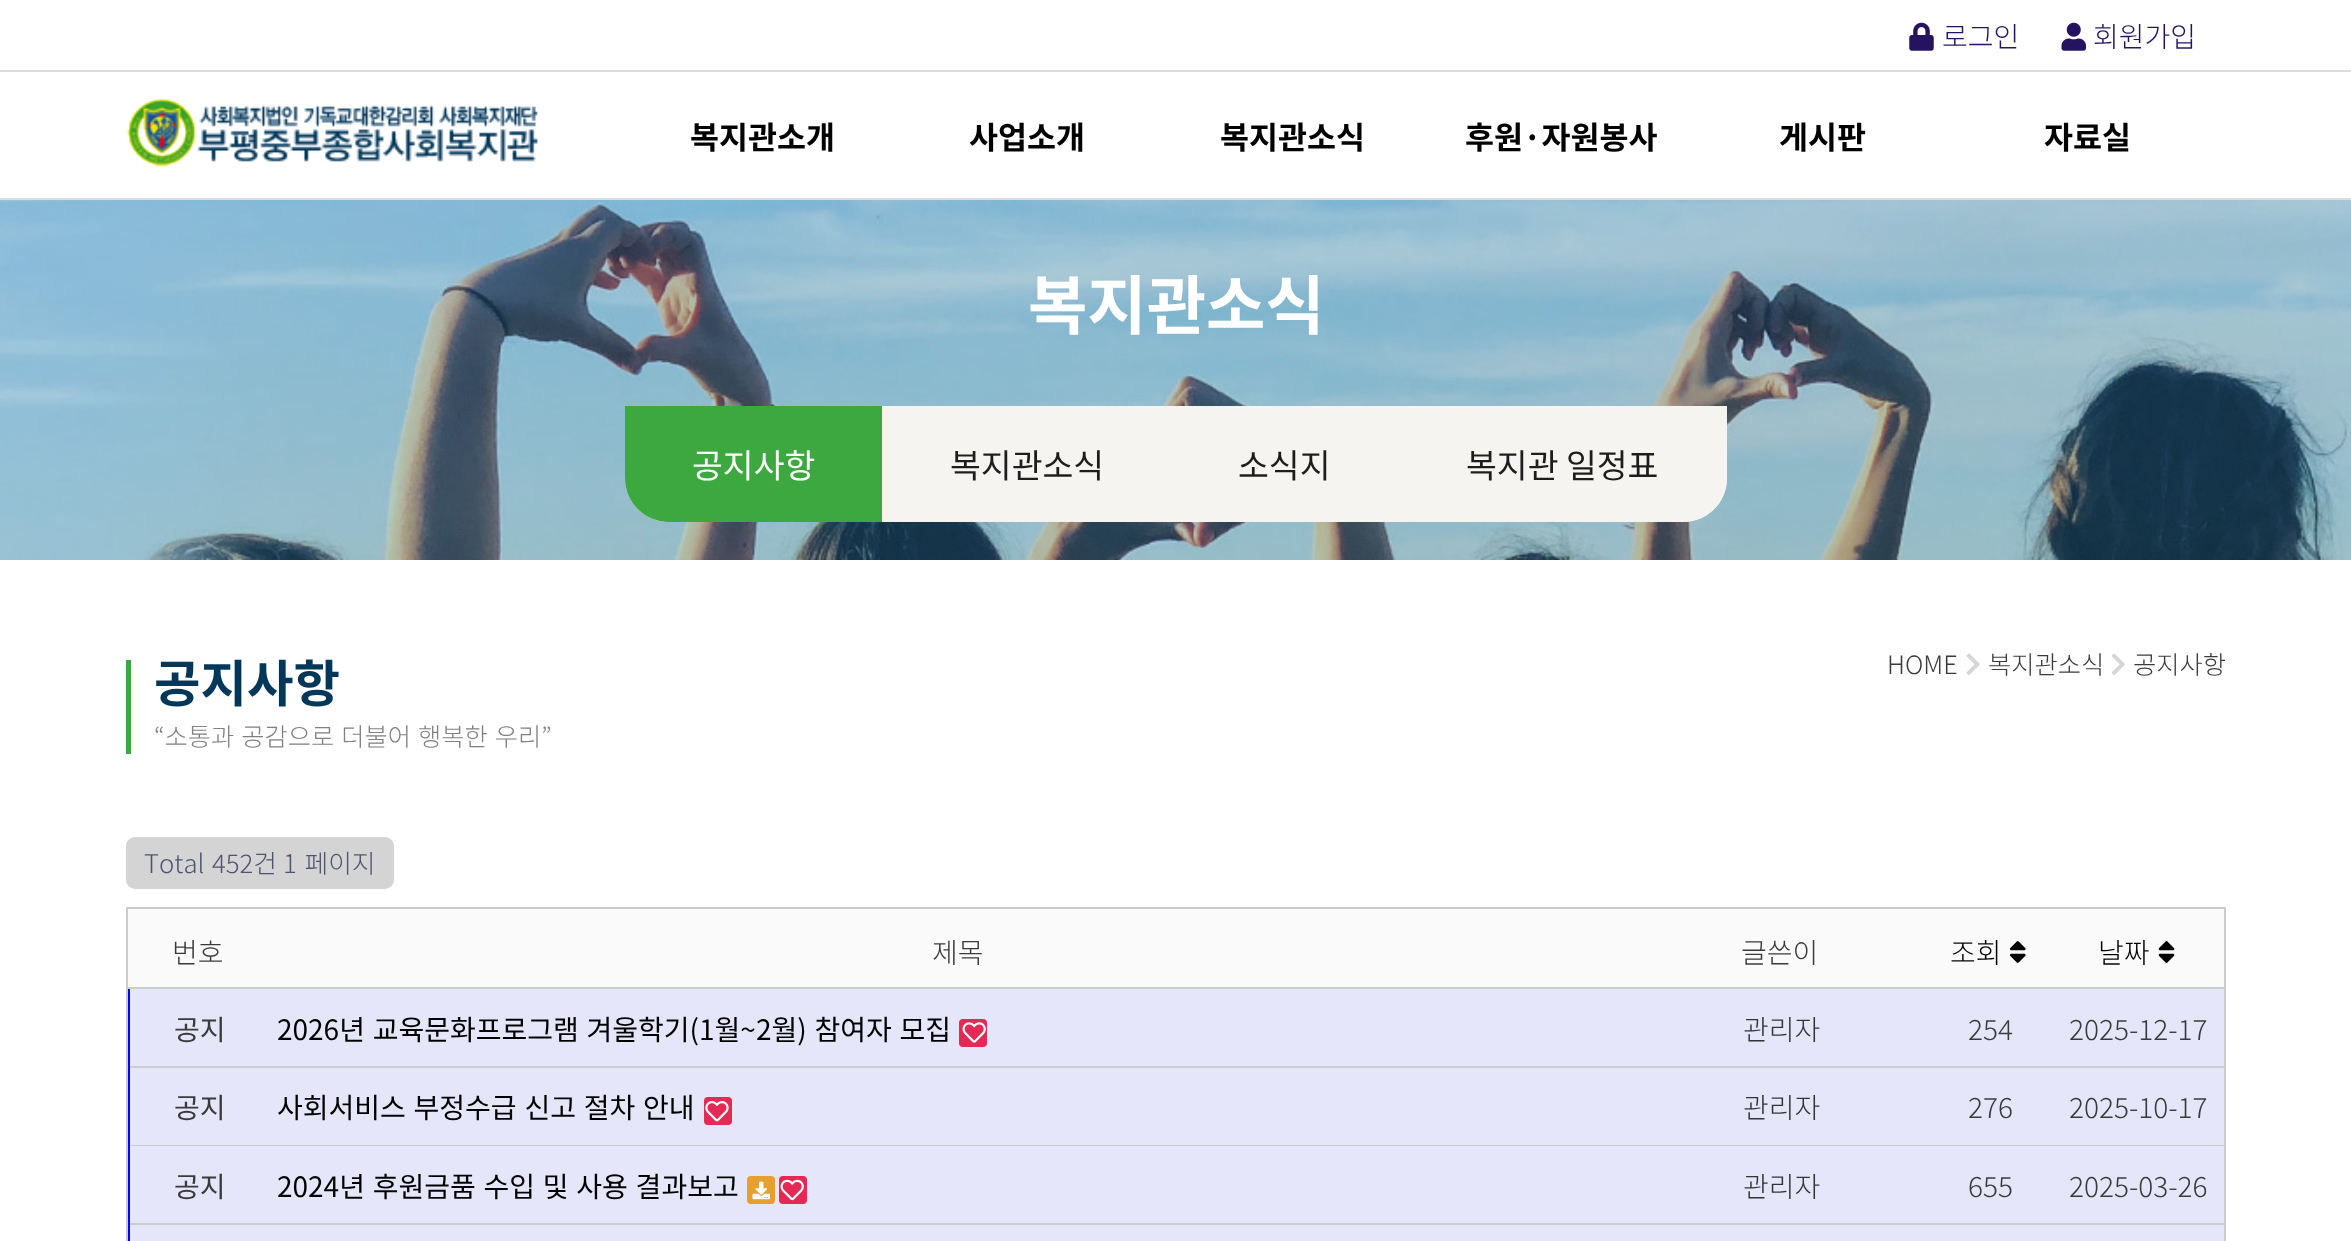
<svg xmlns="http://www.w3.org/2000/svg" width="2351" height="1241">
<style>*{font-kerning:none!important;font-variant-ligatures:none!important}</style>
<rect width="100%" height="100%" fill="#fff"/>
<rect y="70" width="2351" height="2" fill="#dedede"/>
<image x="1909" y="22" width="25" height="29" href="media/1.png"/>
<text x="1942" y="47" style="font-family:Noto Sans KR;font-size:28px;font-weight:300;fill:#26135f">로그인</text>
<image x="2061" y="22" width="25" height="29" href="media/2.png"/>
<text x="2093" y="47" style="font-family:Noto Sans KR;font-size:28px;font-weight:300;fill:#26135f">회원가입</text>
<rect y="198" width="2351" height="2" fill="#ddd"/>
<image x="127" y="99" width="411" height="68" href="media/3.png"/>
<text x="690" y="149" style="font-family:Noto Sans KR;font-size:31.5px;font-weight:bold;fill:#000">복지관소개</text>
<text x="969" y="149" style="font-family:Noto Sans KR;font-size:31.5px;font-weight:bold;fill:#000">사업소개</text>
<text x="1220" y="149" style="font-family:Noto Sans KR;font-size:31.5px;font-weight:bold;fill:#000">복지관소식</text>
<text x="1465" y="149" style="font-family:Noto Sans KR;font-size:31.5px;font-weight:bold;fill:#000">후원·자원봉사</text>
<text x="1779" y="149" style="font-family:Noto Sans KR;font-size:31.5px;font-weight:bold;fill:#000">게시판</text>
<text x="2044" y="149" style="font-family:Noto Sans KR;font-size:31.5px;font-weight:bold;fill:#000">자료실</text>
<image x="0" y="200" width="2351" height="360" href="media/4.png"/>
<text x="1028" y="329" style="font-family:Noto Sans KR;font-size:64.5px;font-weight:bold;fill:#fff">복지관소식</text>
<path d="M625 406h1102v72c0 24.5-19.5 44-44 44h-1014c-24.5 0-44-19.5-44-44z" fill="#f5f4f1"/>
<path d="M625 406h257v116h-213c-24.5 0-44-19.5-44-44z" fill="#3ca83f"/>
<text x="692" y="478" style="font-family:Noto Sans KR;font-size:33.5px;fill:#fff">공지사항</text>
<text x="950" y="478" style="font-family:Noto Sans KR;font-size:33.5px;fill:#1d1d1d">복지관소식</text>
<text x="1238" y="478" style="font-family:Noto Sans KR;font-size:33.5px;fill:#1d1d1d">소식지</text>
<path d="M1398 406h329v72c0 24.5-19.5 44-44 44h-285z" fill="#f5f4f1"/>
<text x="1466" y="478" style="font-family:Noto Sans KR;font-size:33.5px;fill:#1d1d1d">복지관 일정표</text>
<rect x="126" y="660" width="5" height="94" fill="#3ca83f"/>
<text x="154" y="702" style="font-family:Noto Sans KR;font-size:50.5px;font-weight:bold;fill:#023759">공지사항</text>
<text x="154" y="746" word-spacing="1.5" style="font-family:Noto Sans KR;font-size:25.25px;font-weight:300;fill:#808080">“소통과 공감으로 더불어 행복한 우리”</text>
<text x="1887" y="674" style="font-family:Noto Sans KR;font-size:25.25px;font-weight:300;fill:#3a3a3a">HOME</text>
<image x="1966" y="653" width="14" height="22" href="media/5.png"/>
<text x="1988" y="674" style="font-family:Noto Sans KR;font-size:25.25px;font-weight:300;fill:#3a3a3a">복지관소식</text>
<image x="2112" y="653" width="13" height="22" href="media/6.png"/>
<text x="2133" y="674" style="font-family:Noto Sans KR;font-size:25.25px;font-weight:300;fill:#3a3a3a">공지사항</text>
<rect x="126" y="837" width="268" height="52" rx="9" fill="#d4d4d4"/>
<text x="144" y="873" word-spacing="2" style="font-family:Noto Sans KR;font-size:25.75px;font-weight:300;fill:#4e546f">Total 452건</text>
<text x="283" y="873" word-spacing="2" style="font-family:Noto Sans KR;font-size:25.75px;font-weight:300;fill:#4e546f">1 페이지</text>
<rect x="127" y="908" width="2098" height="80" fill="#fafafa" stroke="#ccc" stroke-width="2"/>
<text x="172" y="963" style="font-family:Noto Sans KR;font-size:28px;font-weight:300;fill:#3a3a3a">번호</text>
<text x="932" y="963" style="font-family:Noto Sans KR;font-size:28px;font-weight:300;fill:#3a3a3a">제목</text>
<text x="1741" y="963" style="font-family:Noto Sans KR;font-size:28px;font-weight:300;fill:#3a3a3a">글쓴이</text>
<text x="1950" y="963" style="font-family:Noto Sans KR;font-size:28px;font-weight:300;fill:#000">조회</text>
<image x="2010" y="941" width="16" height="22" href="media/7.png"/>
<text x="2098" y="963" style="font-family:Noto Sans KR;font-size:28px;font-weight:300;fill:#000">날짜</text>
<image x="2158" y="941" width="17" height="22" href="media/8.png"/>
<rect x="2224" y="989" width="2" height="252" fill="#ccc"/>
<rect x="126" y="989" width="2" height="252" fill="#ccc"/>
<rect x="130" y="989" width="2094" height="77" fill="#e6e6fa"/>
<rect x="128" y="1066" width="2096" height="2" fill="#ccc"/>
<rect x="128" y="989" width="2" height="79" fill="#00f"/>
<text x="174" y="1040" style="font-family:Noto Sans KR;font-size:28px;fill:#3a3a3a">공지</text>
<text x="277" y="1040" word-spacing="1.5" style="font-family:Noto Sans KR;font-size:28px;fill:#000">2026년 교육문화프로그램 겨울학기(1월~2월) 참여자 모집</text>
<rect x="959" y="1019" width="28" height="28" rx="4" fill="#e52955"/>
<image x="962" y="1022" width="24" height="21" href="media/9.png"/>
<text x="1743" y="1040" style="font-family:Noto Sans KR;font-size:28px;font-weight:300;fill:#333">관리자</text>
<text x="1968" y="1040" style="font-family:Noto Sans KR;font-size:28px;font-weight:300;fill:#3a3a3a">254</text>
<text x="2069" y="1040" style="font-family:Noto Sans KR;font-size:28px;font-weight:300;fill:#3a3a3a">2025-12-17</text>
<rect x="130" y="1068" width="2094" height="77" fill="#e6e6fa"/>
<rect x="128" y="1145" width="2096" height="1" fill="#ccc"/>
<rect x="128" y="1068" width="2" height="78" fill="#00f"/>
<text x="174" y="1118" style="font-family:Noto Sans KR;font-size:28px;fill:#3a3a3a">공지</text>
<text x="277" y="1118" word-spacing="1.5" style="font-family:Noto Sans KR;font-size:28px;fill:#000">사회서비스 부정수급 신고 절차 안내</text>
<rect x="704" y="1097" width="28" height="28" rx="4" fill="#e52955"/>
<image x="705" y="1101" width="24" height="21" href="media/10.png"/>
<text x="1743" y="1118" style="font-family:Noto Sans KR;font-size:28px;font-weight:300;fill:#333">관리자</text>
<text x="1968" y="1118" style="font-family:Noto Sans KR;font-size:28px;font-weight:300;fill:#3a3a3a">276</text>
<text x="2069" y="1118" style="font-family:Noto Sans KR;font-size:28px;font-weight:300;fill:#3a3a3a">2025-10-17</text>
<rect x="130" y="1146" width="2094" height="77" fill="#e6e6fa"/>
<rect x="128" y="1223" width="2096" height="2" fill="#ccc"/>
<rect x="128" y="1146" width="2" height="95" fill="#00f"/>
<text x="174" y="1197" style="font-family:Noto Sans KR;font-size:28px;fill:#3a3a3a">공지</text>
<text x="277" y="1197" word-spacing="1.5" style="font-family:Noto Sans KR;font-size:28px;fill:#000">2024년 후원금품 수입 및 사용 결과보고</text>
<rect x="747" y="1176" width="28" height="28" rx="4" fill="#e89f31"/>
<image x="752" y="1181" width="18" height="19" href="media/11.png"/>
<rect x="779" y="1176" width="28" height="28" rx="4" fill="#e52955"/>
<image x="780" y="1179" width="24" height="22" href="media/12.png"/>
<text x="1743" y="1197" style="font-family:Noto Sans KR;font-size:28px;font-weight:300;fill:#333">관리자</text>
<text x="1968" y="1197" style="font-family:Noto Sans KR;font-size:28px;font-weight:300;fill:#3a3a3a">655</text>
<text x="2069" y="1197" style="font-family:Noto Sans KR;font-size:28px;font-weight:300;fill:#3a3a3a">2025-03-26</text>
<rect x="130" y="1225" width="2094" height="16" fill="#e6e6fa"/>
</svg>
